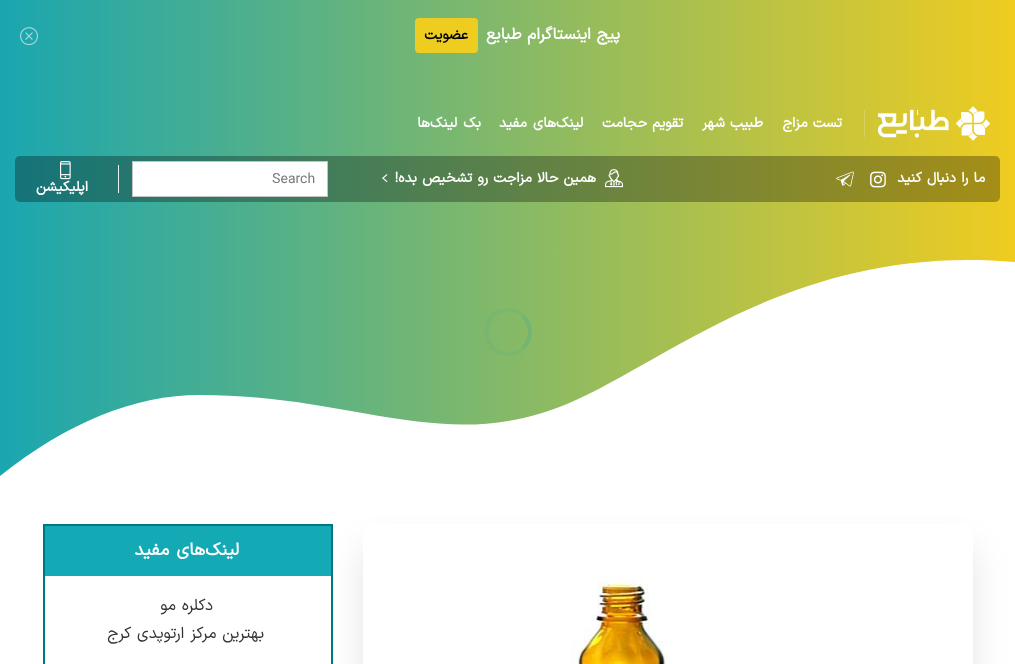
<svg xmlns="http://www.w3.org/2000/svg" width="1015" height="664">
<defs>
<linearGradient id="g1" gradientUnits="userSpaceOnUse" x1="0" y1="332" x2="1015" y2="332"><stop offset="0" stop-color="#1aa6b0"/><stop offset="1" stop-color="#efcc20"/></linearGradient>
<clipPath id="clip1"><path d="M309 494h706v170h-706zm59 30h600c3 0 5 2 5 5v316c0 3-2 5-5 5h-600c-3 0-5-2-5-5v-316c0-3 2-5 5-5z" clip-rule="evenodd"/></clipPath>
</defs>
<rect width="100%" height="100%" fill="#fff"/>
<rect width="1015" height="71" fill="url(#g1)"/>
<text x="620" y="39" word-spacing="1" style="font-family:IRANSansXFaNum;font-size:16px;font-weight:bold;letter-spacing:-0.15px;direction:rtl;fill:#fff">پیج اینستاگرام طبایع</text>
<rect x="415" y="18" width="63" height="35" rx="4" fill="#efcc20"/>
<text x="468" y="39" style="font-family:IRANSansXFaNum;font-size:14px;font-weight:bold;letter-spacing:-0.15px;direction:rtl;fill:#000">عضویت</text>
<image x="20" y="27" width="18" height="19" href="media/1.png"/>
<rect y="71" width="1015" height="405" fill="url(#g1)"/>
<path d="M0 476c68-54 135-81 200-81c156 0 244 60 367 9c100-42 229-161 448-142v244h-1015z" fill="#fff"/>
<image x="878" y="106" width="112" height="35" href="media/2.png"/>
<rect x="864" y="110" width="1" height="27" fill="#d9d15d"/>
<text x="842" y="127" word-spacing="1" style="font-family:IRANSansXFaNum;font-size:14px;font-weight:bold;letter-spacing:-0.15px;direction:rtl;fill:#fff">تست مزاج</text>
<text x="763" y="127" word-spacing="1" style="font-family:IRANSansXFaNum;font-size:14px;font-weight:bold;letter-spacing:-0.15px;direction:rtl;fill:#fff">طبیب شهر</text>
<text x="683" y="127" word-spacing="1" style="font-family:IRANSansXFaNum;font-size:14px;font-weight:bold;letter-spacing:-0.15px;direction:rtl;fill:#fff">تقویم حجامت</text>
<text x="583" y="127" word-spacing="2" style="font-family:IRANSansXFaNum;font-size:14px;font-weight:bold;letter-spacing:-0.15px;direction:rtl;fill:#fff">لینک‌های مفید</text>
<text x="481" y="127" word-spacing="2" style="font-family:IRANSansXFaNum;font-size:14px;font-weight:bold;letter-spacing:-0.15px;direction:rtl;fill:#fff">بک لینک‌ها</text>
<rect x="15" y="156" width="985" height="46" rx="5" fill="#0000004d"/>
<text x="985" y="182" word-spacing="1" style="font-family:IRANSansXFaNum;font-size:14px;font-weight:bold;letter-spacing:-0.15px;direction:rtl;fill:#fff">ما را دنبال کنید</text>
<image x="870" y="171" width="16" height="17" href="media/3.png"/>
<image x="836" y="171" width="18" height="16" href="media/4.png"/>
<image x="605" y="169" width="18" height="19" href="media/5.png"/>
<text x="596" y="182" word-spacing="1" style="font-family:IRANSansXFaNum;font-size:14px;font-weight:bold;letter-spacing:-0.15px;direction:rtl;fill:#fff">همین حالا مزاجت رو تشخیص بده!</text>
<image x="382" y="174" width="6" height="8" href="media/6.png"/>
<rect x="132.5" y="161.5" width="195" height="35" fill="#fff" stroke="#c4c4c4"/>
<text x="272" y="183" style="font-family:IRANSansXFaNum;font-size:14px;fill:#7a7a7a">Search</text>
<rect x="118" y="165" width="1" height="28" fill="#e9f1f1"/>
<image x="60" y="161" width="11" height="19" href="media/7.png"/>
<text x="88" y="191" style="font-family:IRANSansXFaNum;font-size:14px;font-weight:bold;letter-spacing:-0.15px;direction:rtl;fill:#fff">اپلیکیشن</text>
<g clip-path="url(#clip1)">
<rect x="363" y="548" width="610" height="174" rx="5" fill="#0000001a" filter="blur(17.5px)"/>
</g>
<image x="571" y="576" width="97" height="88" href="media/8.png"/>
<rect x="44" y="525" width="288" height="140" fill="none" stroke="#007682" stroke-width="2"/>
<rect x="45" y="526" width="286" height="50" fill="#13a9b5"/>
<text x="239" y="555" word-spacing="2" style="font-family:IRANSansXFaNum;font-size:17.5px;font-weight:bold;letter-spacing:-0.15px;direction:rtl;fill:#fff">لینک‌های مفید</text>
<text x="213" y="610" word-spacing="1" style="font-family:IRANSansXFaNum;font-size:16px;letter-spacing:-0.15px;direction:rtl;fill:#333">دکلره مو</text>
<text x="264" y="638" word-spacing="1" style="font-family:IRANSansXFaNum;font-size:16px;letter-spacing:-0.15px;direction:rtl;fill:#333">بهترین مرکز ارتوپدی کرج</text>
<path d="M523.5 316.5c8.5 8.5 8.5 22.5 0 31" fill="none" stroke="#73b674" stroke-width="4"/>
<path d="M523.5 347.5c-4 4-9.5 6.5-15.5 6.5c-26 0-30-38.5-4.5-43.5c7.5-1.5 15 1 20 6" fill="none" stroke="#1aa6b014" stroke-width="4"/>
</svg>
